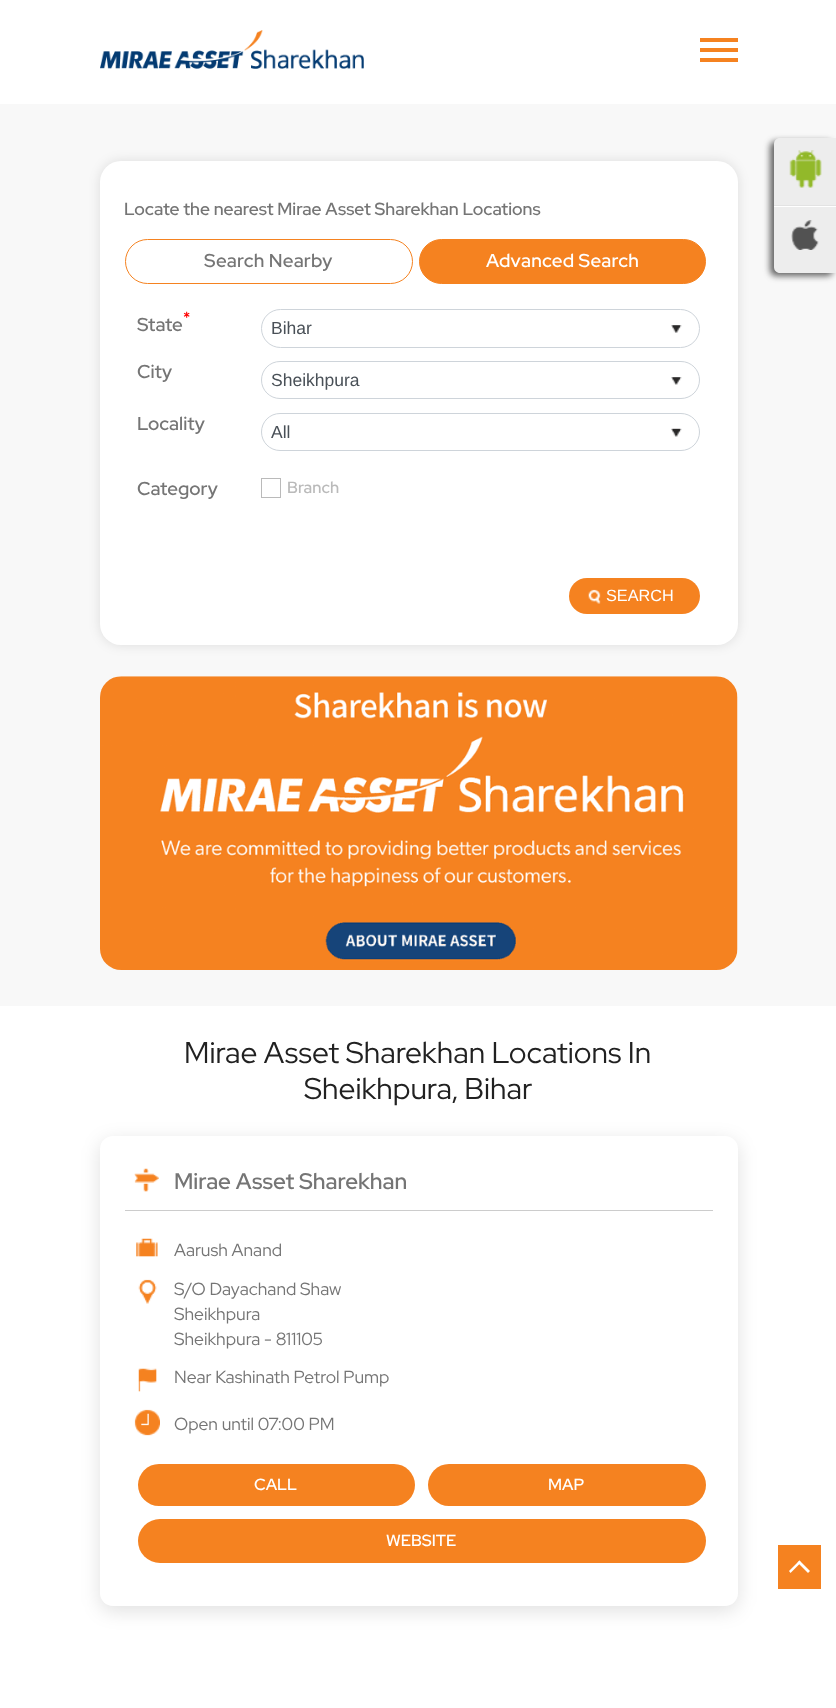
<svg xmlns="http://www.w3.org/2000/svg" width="836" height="1708">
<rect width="100%" height="100%" fill="#f8f8f8"/>
<rect width="836" height="104" fill="#fff"/>
<image x="100" y="30" width="264" height="39" href="media/1.png"/>
<rect x="700" y="48" width="38" height="4" fill="#f58220"/>
<rect x="700" y="38" width="38" height="4" fill="#f58220"/>
<rect x="700" y="58" width="38" height="4" fill="#f58220"/>
<rect x="100" y="161" width="638" height="484" rx="21" fill="#0000001c" filter="blur(6px)"/>
<rect x="100" y="161" width="638" height="484" rx="21" fill="#fff"/>
<text x="124" y="215" style="font-family:Red Hat Display;font-size:17.5px;font-weight:500;fill:#757575">Locate the nearest Mirae Asset Sharekhan Locations</text>
<rect x="125.5" y="239.5" width="287" height="44" rx="22" fill="none" stroke="#f58220"/>
<text x="204" y="267" style="font-family:Red Hat Display;font-size:18.75px;font-weight:500;letter-spacing:0.25px;fill:#757575">Search Nearby</text>
<rect x="419.5" y="239.5" width="286" height="44" rx="22" fill="#f58220" stroke="#f58220"/>
<text x="486" y="267" style="font-family:Red Hat Display;font-size:18.75px;font-weight:500;letter-spacing:0.25px;fill:#fff">Advanced Search</text>
<text x="183" y="323" style="font-family:Red Hat Display;font-size:16px;font-weight:500;fill:#f00">*</text>
<text x="137" y="331" style="font-family:Red Hat Display;font-size:18.75px;font-weight:500;fill:#757575">State</text>
<image x="671" y="325" width="11" height="8" href="media/2.png"/>
<rect x="261.5" y="309.5" width="438" height="38" rx="19" fill="none" stroke="#ced4da"/>
<text x="271" y="334" style="font-family:Liberation Sans;font-size:17.5px;fill:#495057">Bihar</text>
<text x="137" y="378" style="font-family:Red Hat Display;font-size:18.75px;font-weight:500;fill:#757575">City</text>
<image x="671" y="377" width="11" height="8" href="media/3.png"/>
<rect x="261.5" y="361.5" width="438" height="37" rx="18.5" fill="none" stroke="#ced4da"/>
<text x="271" y="386" style="font-family:Liberation Sans;font-size:17.5px;fill:#495057">Sheikhpura</text>
<text x="137" y="430" style="font-family:Red Hat Display;font-size:18.75px;font-weight:500;fill:#757575">Locality</text>
<image x="671" y="428" width="11" height="9" href="media/4.png"/>
<rect x="261.5" y="413.5" width="438" height="37" rx="18.5" fill="none" stroke="#ced4da"/>
<text x="271" y="438" style="font-family:Liberation Sans;font-size:17.5px;fill:#495057">All</text>
<text x="137" y="495" style="font-family:Red Hat Display;font-size:18.75px;font-weight:500;fill:#757575">Category</text>
<rect x="261.5" y="478.5" width="19" height="19" fill="none" stroke="#bababa"/>
<text x="287" y="493" style="font-family:Red Hat Display;font-size:16.25px;font-weight:500;fill:#bababa">Branch</text>
<rect x="569" y="578" width="131" height="36" rx="18" fill="#f58220"/>
<image x="588" y="589" width="13" height="15" href="media/5.png"/>
<text x="606" y="601" style="font-family:Liberation Sans;font-size:16.25px;fill:#fff">SEARCH</text>
<image x="100" y="676" width="638" height="294" href="media/6.png"/>
<rect x="770" y="141" width="63" height="135" rx="6" fill="#323232bf" filter="blur(3px)"/>
<path d="M780 138h56v135h-56c-3.5 0-6-2.5-6-6v-123c0-3.5 2.5-6 6-6z" fill="#ededed"/>
<rect x="774" y="205" width="62" height="1" fill="#e3e3e3"/>
<image x="789" y="150" width="33" height="38" href="media/7.png"/>
<rect x="774" y="206" width="62" height="1" fill="#fff"/>
<image x="791" y="220" width="28" height="30" href="media/8.png"/>
<rect y="1006" width="836" height="702" fill="#fff"/>
<text x="184" y="1063" style="font-family:Red Hat Display;font-size:30px;fill:#212121">Mirae Asset Sharekhan Locations In</text>
<text x="304" y="1099" style="font-family:Red Hat Display;font-size:30px;fill:#212121">Sheikhpura, Bihar</text>
<rect x="100" y="1141" width="638" height="470" rx="13" fill="#0000001f" filter="blur(9.5px)"/>
<rect x="100" y="1136" width="638" height="470" rx="13" fill="#fff"/>
<rect x="125" y="1210" width="588" height="1" fill="#ccc"/>
<image x="134" y="1168" width="25" height="24" href="media/9.png"/>
<text x="174" y="1189" style="font-family:Red Hat Display;font-size:22.5px;font-weight:500;fill:#757575">Mirae Asset Sharekhan</text>
<image x="136" y="1238" width="22" height="19" href="media/10.png"/>
<text x="174" y="1256" style="font-family:Red Hat Display;font-size:17.5px;fill:#757575">Aarush Anand</text>
<image x="138" y="1279" width="19" height="25" href="media/11.png"/>
<text x="174" y="1295" style="font-family:Red Hat Display;font-size:17.5px;fill:#757575">S/O Dayachand Shaw</text>
<text x="174" y="1320" style="font-family:Red Hat Display;font-size:17.5px;fill:#757575">Sheikhpura</text>
<text x="174" y="1345" style="font-family:Red Hat Display;font-size:17.5px;fill:#757575">Sheikhpura - 811105</text>
<image x="138" y="1368" width="19" height="24" href="media/12.png"/>
<text x="174" y="1383" style="font-family:Red Hat Display;font-size:17.5px;fill:#757575">Near Kashinath Petrol Pump</text>
<image x="134" y="1409" width="26" height="27" href="media/13.png"/>
<text x="174" y="1430" style="font-family:Red Hat Display;font-size:17.5px;fill:#757575">Open until 07:00 PM</text>
<rect x="138" y="1464" width="277" height="42" rx="21" fill="#f58220"/>
<text x="254" y="1490" style="font-family:Red Hat Display;font-size:16.25px;font-weight:500;fill:#fff">CALL</text>
<rect x="428" y="1464" width="278" height="42" rx="21" fill="#f58220"/>
<text x="548" y="1490" style="font-family:Red Hat Display;font-size:16.25px;font-weight:500;fill:#fff">MAP</text>
<rect x="138" y="1519" width="568" height="44" rx="22" fill="#f58220"/>
<text x="386" y="1546" style="font-family:Red Hat Display;font-size:16.25px;font-weight:500;fill:#fff">WEBSITE</text>
<rect x="778" y="1545" width="43" height="44" fill="#f58220"/>
<path d="M790.5 1573l-1.5-2l10.5-10.5l1.5 2z" fill="#fff"/>
<path d="M808 1573l-10.5-10.5l2-2l10.5 10.5z" fill="#fff"/>
</svg>
